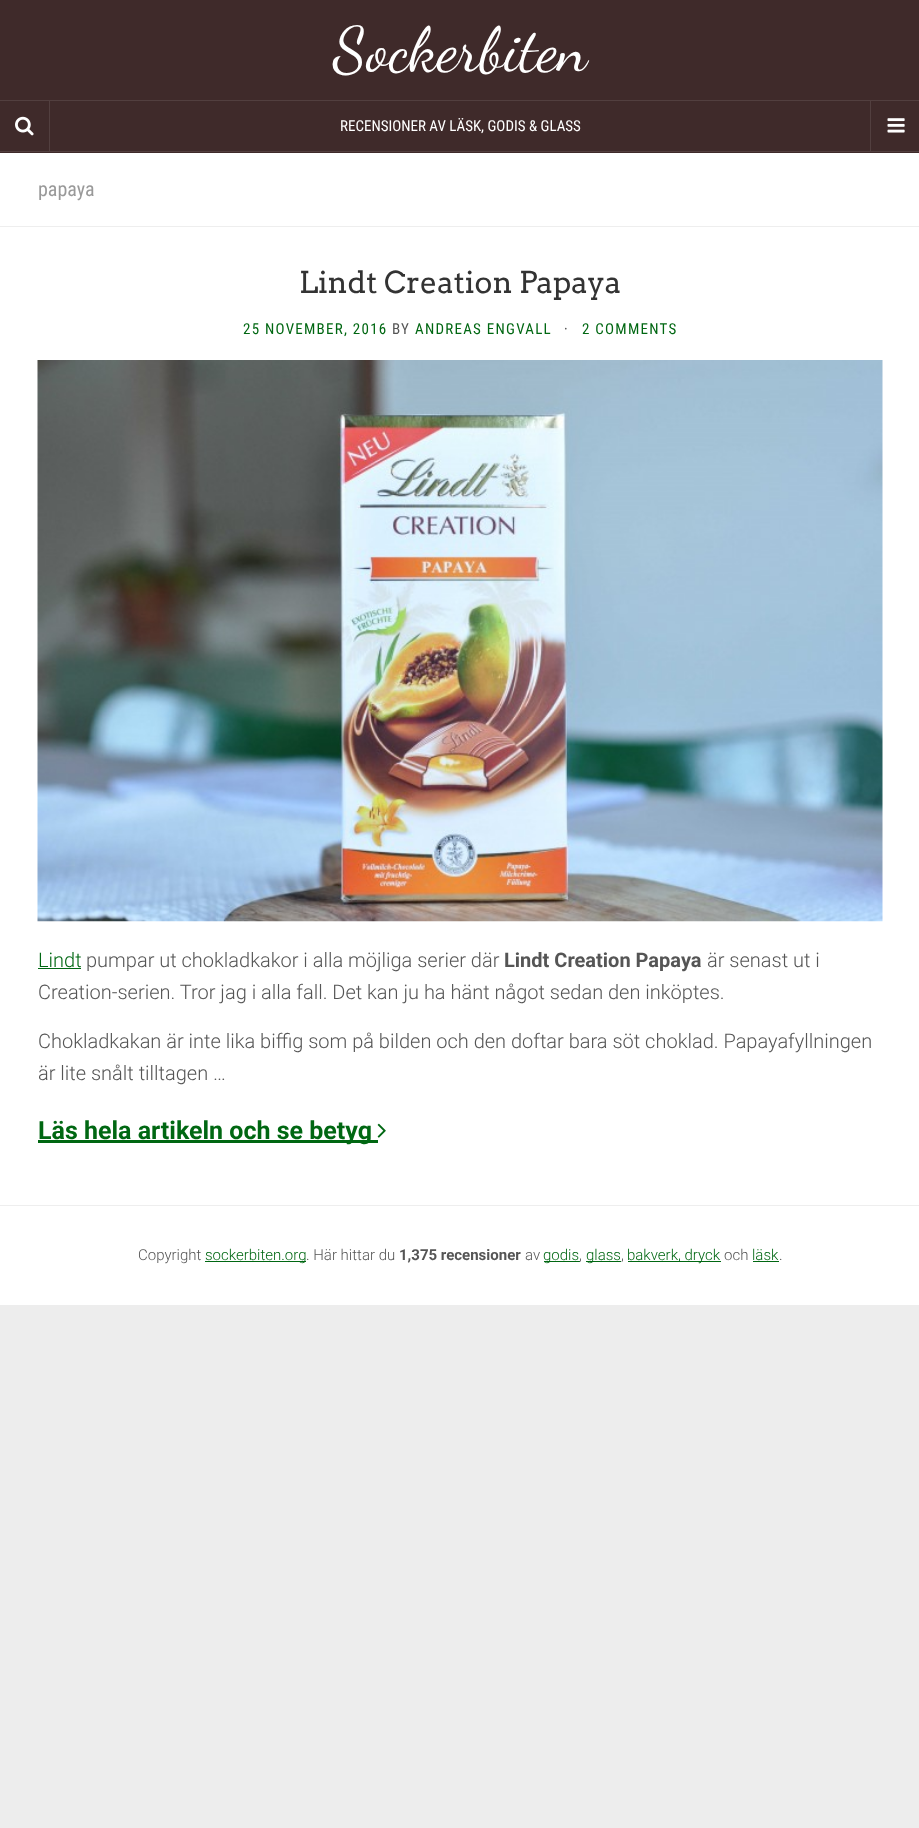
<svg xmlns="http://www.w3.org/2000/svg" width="919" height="1828">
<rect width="100%" height="100%" fill="#ededed"/>
<rect width="919" height="153" fill="#3f2a2a"/>
<rect x="49" y="101" width="1" height="50" fill="#523f3f"/>
<image x="15" y="116" width="19" height="20" href="media/1.png"/>
<rect y="151" width="919" height="1" fill="#523f3f"/>
<rect y="100" width="919" height="1" fill="#523f3f"/>
<text x="333" y="70" style="font-family:Dancing Script;font-size:62.5px;fill:#fff">Sockerbiten</text>
<text x="340" y="131" style="font-family:Roboto Condensed;font-size:15px;fill:#fff">RECENSIONER AV LÄSK, GODIS &amp; GLASS</text>
<rect x="870" y="101" width="1" height="50" fill="#523f3f"/>
<image x="887" y="118" width="18" height="15" href="media/2.png"/>
<rect y="153" width="919" height="1152" fill="#fff"/>
<rect y="226" width="919" height="1" fill="#eee"/>
<text x="38" y="196" style="font-family:Roboto Condensed;font-size:20px;fill:#999">papaya</text>
<rect y="1205" width="919" height="1" fill="#eee"/>
<text x="299" y="293" style="font-family:Arvo;font-size:30px;fill:#333">Lindt Creation Papaya</text>
<text x="243" y="334" style="font-family:Roboto Condensed;font-size:15px;letter-spacing:1.25px;fill:#006712">25 NOVEMBER, 2016</text>
<text x="392" y="334" style="font-family:Roboto Condensed;font-size:15px;letter-spacing:1.25px;fill:#555">BY</text>
<text x="415" y="334" style="font-family:Roboto Condensed;font-size:15px;letter-spacing:1.25px;fill:#006712">ANDREAS ENGVALL</text>
<text x="564" y="334" style="font-family:Roboto Condensed;font-size:15px;letter-spacing:1.25px;fill:#555">·</text>
<text x="582" y="334" style="font-family:Roboto Condensed;font-size:15px;letter-spacing:1.25px;fill:#006712">2 COMMENTS</text>
<image x="37" y="360" width="846" height="562" href="media/3.png"/>
<text x="38" y="967" style="font-family:Roboto;font-size:20px;font-weight:300;fill:#006712">Lindt</text>
<rect x="38" y="968" width="43" height="1" fill="#006712"/>
<text x="86" y="967" style="font-family:Roboto;font-size:20px;font-weight:300;fill:#555">pumpar ut chokladkakor i alla möjliga serier där</text>
<text x="504" y="967" style="font-family:Roboto;font-size:20px;font-weight:bold;fill:#555">Lindt Creation Papaya</text>
<text x="707" y="967" style="font-family:Roboto;font-size:20px;font-weight:300;fill:#555">är senast ut i</text>
<text x="38" y="999" style="font-family:Roboto;font-size:20px;font-weight:300;fill:#555">Creation-serien. Tror jag i alla fall. Det kan ju ha hänt något sedan den inköptes.</text>
<text x="38" y="1048" style="font-family:Roboto;font-size:20px;font-weight:300;fill:#555">Chokladkakan är inte lika biffig som på bilden och den doftar bara söt choklad. Papayafyllningen</text>
<text x="38" y="1080" style="font-family:Roboto;font-size:20px;font-weight:300;fill:#555">är lite snålt tilltagen …</text>
<rect x="38" y="1140" width="340" height="3" fill="#006712"/>
<text x="38" y="1139" style="font-family:Roboto;font-size:25px;font-weight:bold;fill:#006712">Läs hela artikeln och se betyg</text>
<image x="377" y="1123" width="9" height="15" href="media/4.png"/>
<text x="138" y="1260" style="font-family:Roboto;font-size:15px;font-weight:300;fill:#555">Copyright</text>
<rect x="205" y="1261" width="101" height="1" fill="#006712"/>
<text x="205" y="1260" style="font-family:Roboto;font-size:15px;font-weight:300;fill:#006712">sockerbiten.org</text>
<text x="306" y="1260" style="font-family:Roboto;font-size:15px;font-weight:300;fill:#555">. Här hittar du</text>
<text x="399" y="1260" style="font-family:Roboto;font-size:15px;font-weight:bold;fill:#555">1,375 recensioner</text>
<text x="525" y="1260" style="font-family:Roboto;font-size:15px;font-weight:300;fill:#555">av</text>
<rect x="544" y="1261" width="36" height="1" fill="#006712"/>
<text x="543" y="1260" style="font-family:Roboto;font-size:15px;font-weight:300;fill:#006712">godis</text>
<text x="579" y="1260" style="font-family:Roboto;font-size:15px;font-weight:300;fill:#555">,</text>
<rect x="586" y="1261" width="35" height="1" fill="#006712"/>
<text x="586" y="1260" style="font-family:Roboto;font-size:15px;font-weight:300;fill:#006712">glass</text>
<text x="621" y="1260" style="font-family:Roboto;font-size:15px;font-weight:300;fill:#555">,</text>
<rect x="628" y="1261" width="93" height="1" fill="#006712"/>
<text x="627" y="1260" style="font-family:Roboto;font-size:15px;font-weight:300;fill:#006712">bakverk, dryck</text>
<text x="724" y="1260" style="font-family:Roboto;font-size:15px;font-weight:300;fill:#555">och</text>
<text x="752" y="1260" style="font-family:Roboto;font-size:15px;font-weight:300;fill:#006712">läsk</text>
<rect x="753" y="1261" width="26" height="1" fill="#006712"/>
<text x="779" y="1260" style="font-family:Roboto;font-size:15px;font-weight:300;fill:#555">.</text>
</svg>
